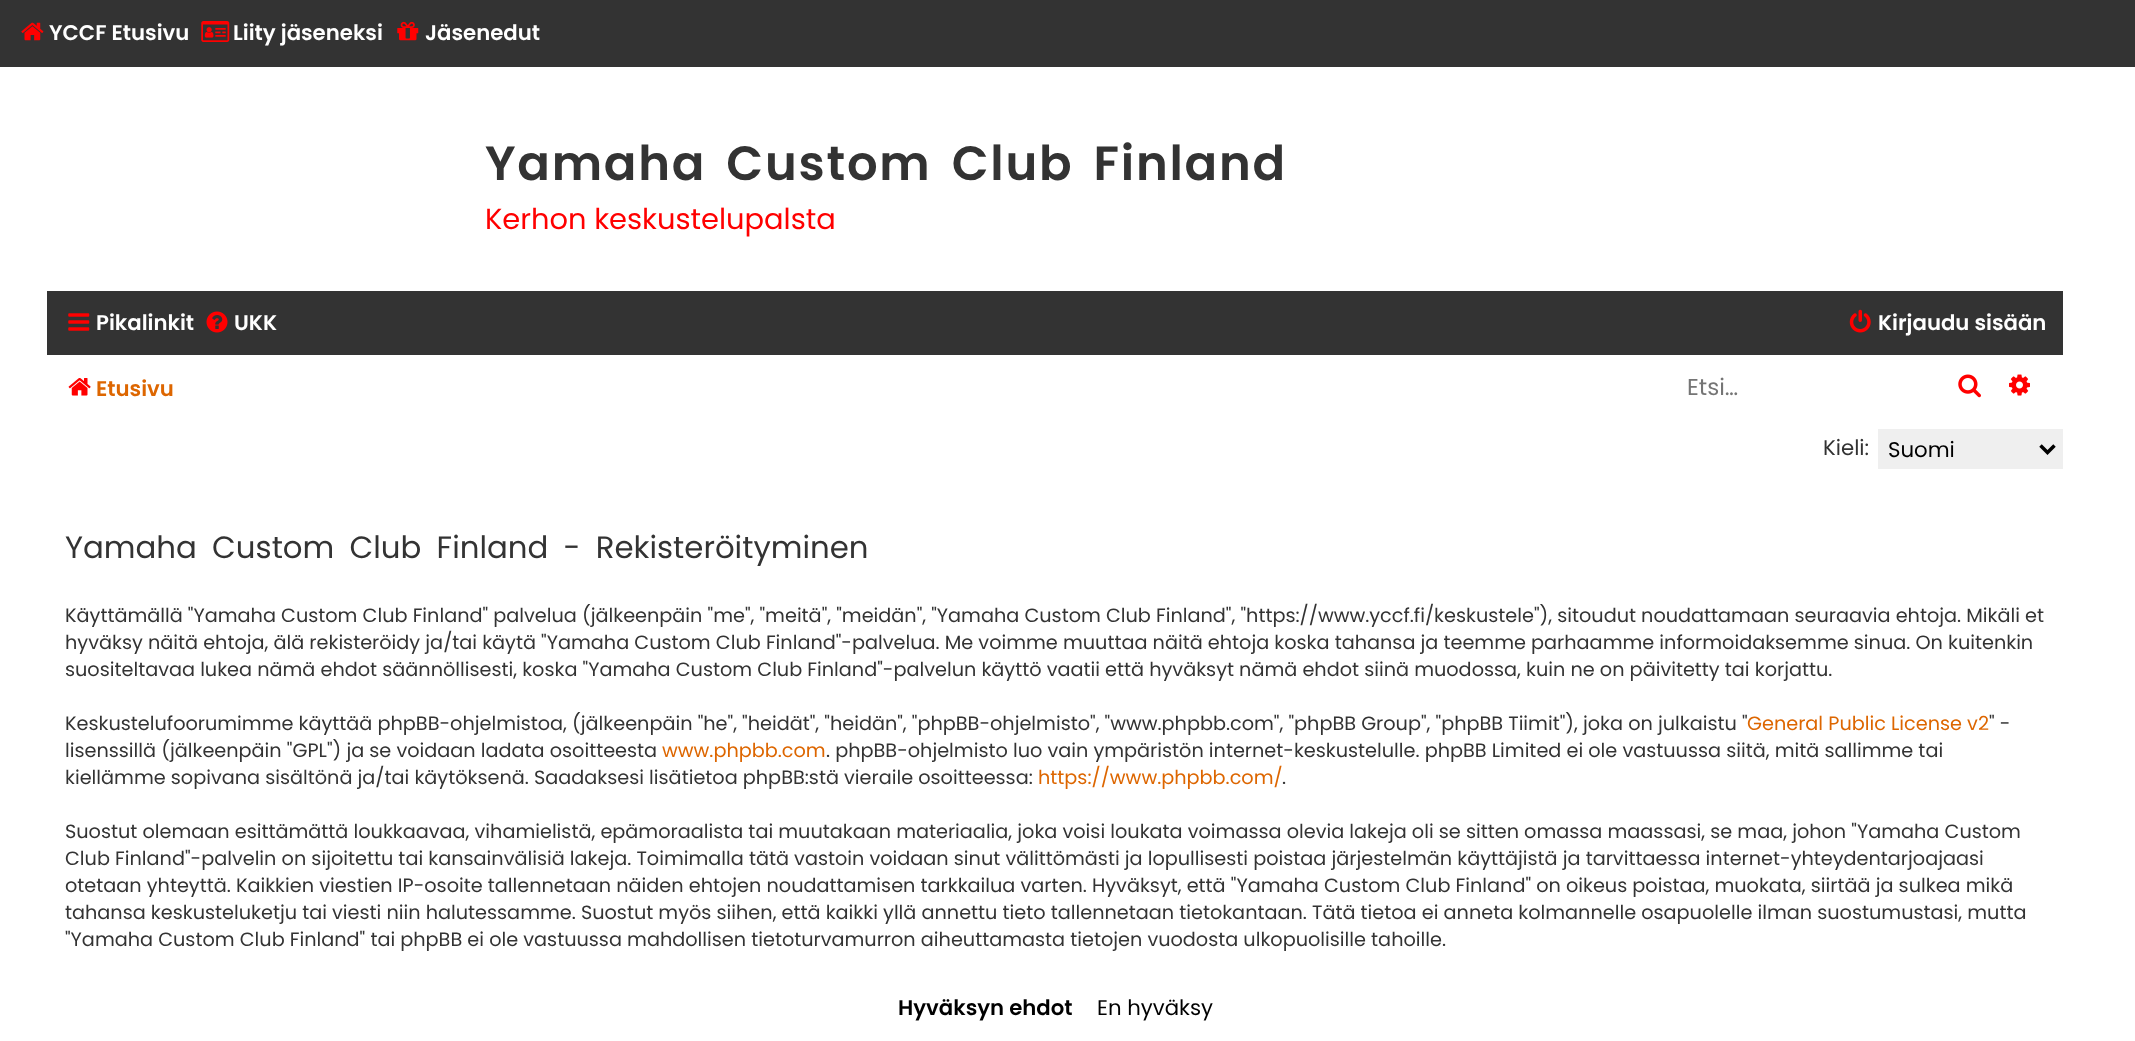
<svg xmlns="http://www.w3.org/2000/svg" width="2135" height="1041">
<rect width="100%" height="100%" fill="#fff"/>
<rect width="2135" height="67" fill="#333"/>
<image x="21" y="22" width="23" height="19" href="media/1.png"/>
<text x="49" y="40" style="font-family:Poppins;font-size:21.25px;font-weight:600;fill:#fff">YCCF Etusivu</text>
<image x="201" y="21" width="29" height="21" href="media/2.png"/>
<text x="233" y="40" style="font-family:Poppins;font-size:21.25px;font-weight:600;fill:#fff">Liity jäseneksi</text>
<image x="397" y="21" width="22" height="20" href="media/3.png"/>
<text x="425" y="40" style="font-family:Poppins;font-size:21.25px;font-weight:600;fill:#fff">Jäsenedut</text>
<text x="485" y="180" word-spacing="7" style="font-family:Poppins;font-size:48.1px;font-weight:600;letter-spacing:1.75px;fill:#333">Yamaha Custom Club Finland</text>
<text x="485" y="229" style="font-family:Poppins;font-size:28.9px;fill:#f00">Kerhon keskustelupalsta</text>
<rect x="47" y="291" width="2016" height="64" fill="#333"/>
<image x="68" y="313" width="22" height="18" href="media/4.png"/>
<text x="96" y="330" style="font-family:Poppins;font-size:21.25px;font-weight:600;fill:#fff">Pikalinkit</text>
<image x="206" y="311" width="22" height="22" href="media/5.png"/>
<text x="234" y="330" style="font-family:Poppins;font-size:21.25px;font-weight:600;fill:#fff">UKK</text>
<image x="1849" y="309" width="22" height="24" href="media/6.png"/>
<text x="1878" y="330" style="font-family:Poppins;font-size:21.25px;font-weight:600;fill:#fff">Kirjaudu sisään</text>
<image x="68" y="378" width="23" height="18" href="media/7.png"/>
<text x="96" y="396" style="font-family:Poppins;font-size:21.25px;font-weight:600;fill:#d60">Etusivu</text>
<text x="1687" y="395" style="font-family:Poppins;font-size:23px;fill:#757575">Etsi…</text>
<image x="1958" y="374" width="23" height="24" href="media/8.png"/>
<image x="2009" y="374" width="21" height="22" href="media/9.png"/>
<text x="1823" y="455" style="font-family:Poppins;font-size:21.25px;fill:#333">Kieli:</text>
<rect x="1878" y="429" width="185" height="40" fill="#efefef"/>
<path d="M2040.5 445.5l7 7l7-7" fill="none" stroke="#000" stroke-width="3.5"/>
<text x="1888" y="457" style="font-family:Poppins;font-size:21.25px;fill:#000">Suomi</text>
<text x="65" y="558" word-spacing="7" style="font-family:Poppins;font-size:30.8px;fill:#333">Yamaha Custom Club Finland - Rekisteröityminen</text>
<text x="65" y="622" style="font-family:Poppins;font-size:19.25px;fill:#333">Käyttämällä "Yamaha Custom Club Finland" palvelua (jälkeenpäin "me", "meitä", "meidän", "Yamaha Custom Club Finland", "https://www.yccf.fi/keskustele"), sitoudut noudattamaan seuraavia ehtoja. Mikäli et</text>
<text x="65" y="649" style="font-family:Poppins;font-size:19.25px;fill:#333">hyväksy näitä ehtoja, älä rekisteröidy ja/tai käytä "Yamaha Custom Club Finland"-palvelua. Me voimme muuttaa näitä ehtoja koska tahansa ja teemme parhaamme informoidaksemme sinua. On kuitenkin</text>
<text x="65" y="676" style="font-family:Poppins;font-size:19.25px;fill:#333">suositeltavaa lukea nämä ehdot säännöllisesti, koska "Yamaha Custom Club Finland"-palvelun käyttö vaatii että hyväksyt nämä ehdot siinä muodossa, kuin ne on päivitetty tai korjattu.</text>
<text x="65" y="730" style="font-family:Poppins;font-size:19.25px;fill:#333">Keskustelufoorumimme käyttää phpBB-ohjelmistoa, (jälkeenpäin "he", "heidät", "heidän", "phpBB-ohjelmisto", "www.phpbb.com", "phpBB Group", "phpBB Tiimit"), joka on julkaistu "</text>
<text x="1747" y="730" style="font-family:Poppins;font-size:19.25px;fill:#d60">General Public License v2</text>
<text x="1989" y="730" style="font-family:Poppins;font-size:19.25px;fill:#333">" -</text>
<text x="65" y="757" style="font-family:Poppins;font-size:19.25px;fill:#333">lisenssillä (jälkeenpäin "GPL") ja se voidaan ladata osoitteesta</text>
<text x="662" y="757" style="font-family:Poppins;font-size:19.25px;fill:#d60">www.phpbb.com</text>
<text x="826" y="757" style="font-family:Poppins;font-size:19.25px;fill:#333">. phpBB-ohjelmisto luo vain ympäristön internet-keskustelulle. phpBB Limited ei ole vastuussa siitä, mitä sallimme tai</text>
<text x="65" y="784" style="font-family:Poppins;font-size:19.25px;fill:#333">kiellämme sopivana sisältönä ja/tai käytöksenä. Saadaksesi lisätietoa phpBB:stä vieraile osoitteessa:</text>
<text x="1038" y="784" style="font-family:Poppins;font-size:19.25px;fill:#d60">https://www.phpbb.com/</text>
<text x="1282" y="784" style="font-family:Poppins;font-size:19.25px;fill:#333">.</text>
<text x="65" y="838" style="font-family:Poppins;font-size:19.25px;fill:#333">Suostut olemaan esittämättä loukkaavaa, vihamielistä, epämoraalista tai muutakaan materiaalia, joka voisi loukata voimassa olevia lakeja oli se sitten omassa maassasi, se maa, johon "Yamaha Custom</text>
<text x="65" y="865" style="font-family:Poppins;font-size:19.25px;fill:#333">Club Finland"-palvelin on sijoitettu tai kansainvälisiä lakeja. Toimimalla tätä vastoin voidaan sinut välittömästi ja lopullisesti poistaa järjestelmän käyttäjistä ja tarvittaessa internet-yhteydentarjoajaasi</text>
<text x="65" y="892" style="font-family:Poppins;font-size:19.25px;fill:#333">otetaan yhteyttä. Kaikkien viestien IP-osoite tallennetaan näiden ehtojen noudattamisen tarkkailua varten. Hyväksyt, että "Yamaha Custom Club Finland" on oikeus poistaa, muokata, siirtää ja sulkea mikä</text>
<text x="65" y="919" style="font-family:Poppins;font-size:19.25px;fill:#333">tahansa keskusteluketju tai viesti niin halutessamme. Suostut myös siihen, että kaikki yllä annettu tieto tallennetaan tietokantaan. Tätä tietoa ei anneta kolmannelle osapuolelle ilman suostumustasi, mutta</text>
<text x="65" y="946" style="font-family:Poppins;font-size:19.25px;fill:#333">"Yamaha Custom Club Finland" tai phpBB ei ole vastuussa mahdollisen tietoturvamurron aiheuttamasta tietojen vuodosta ulkopuolisille tahoille.</text>
<text x="898" y="1015" style="font-family:Poppins;font-size:21.25px;font-weight:600;fill:#000">Hyväksyn ehdot</text>
<text x="1097" y="1015" style="font-family:Poppins;font-size:21.25px;fill:#000">En hyväksy</text>
</svg>
